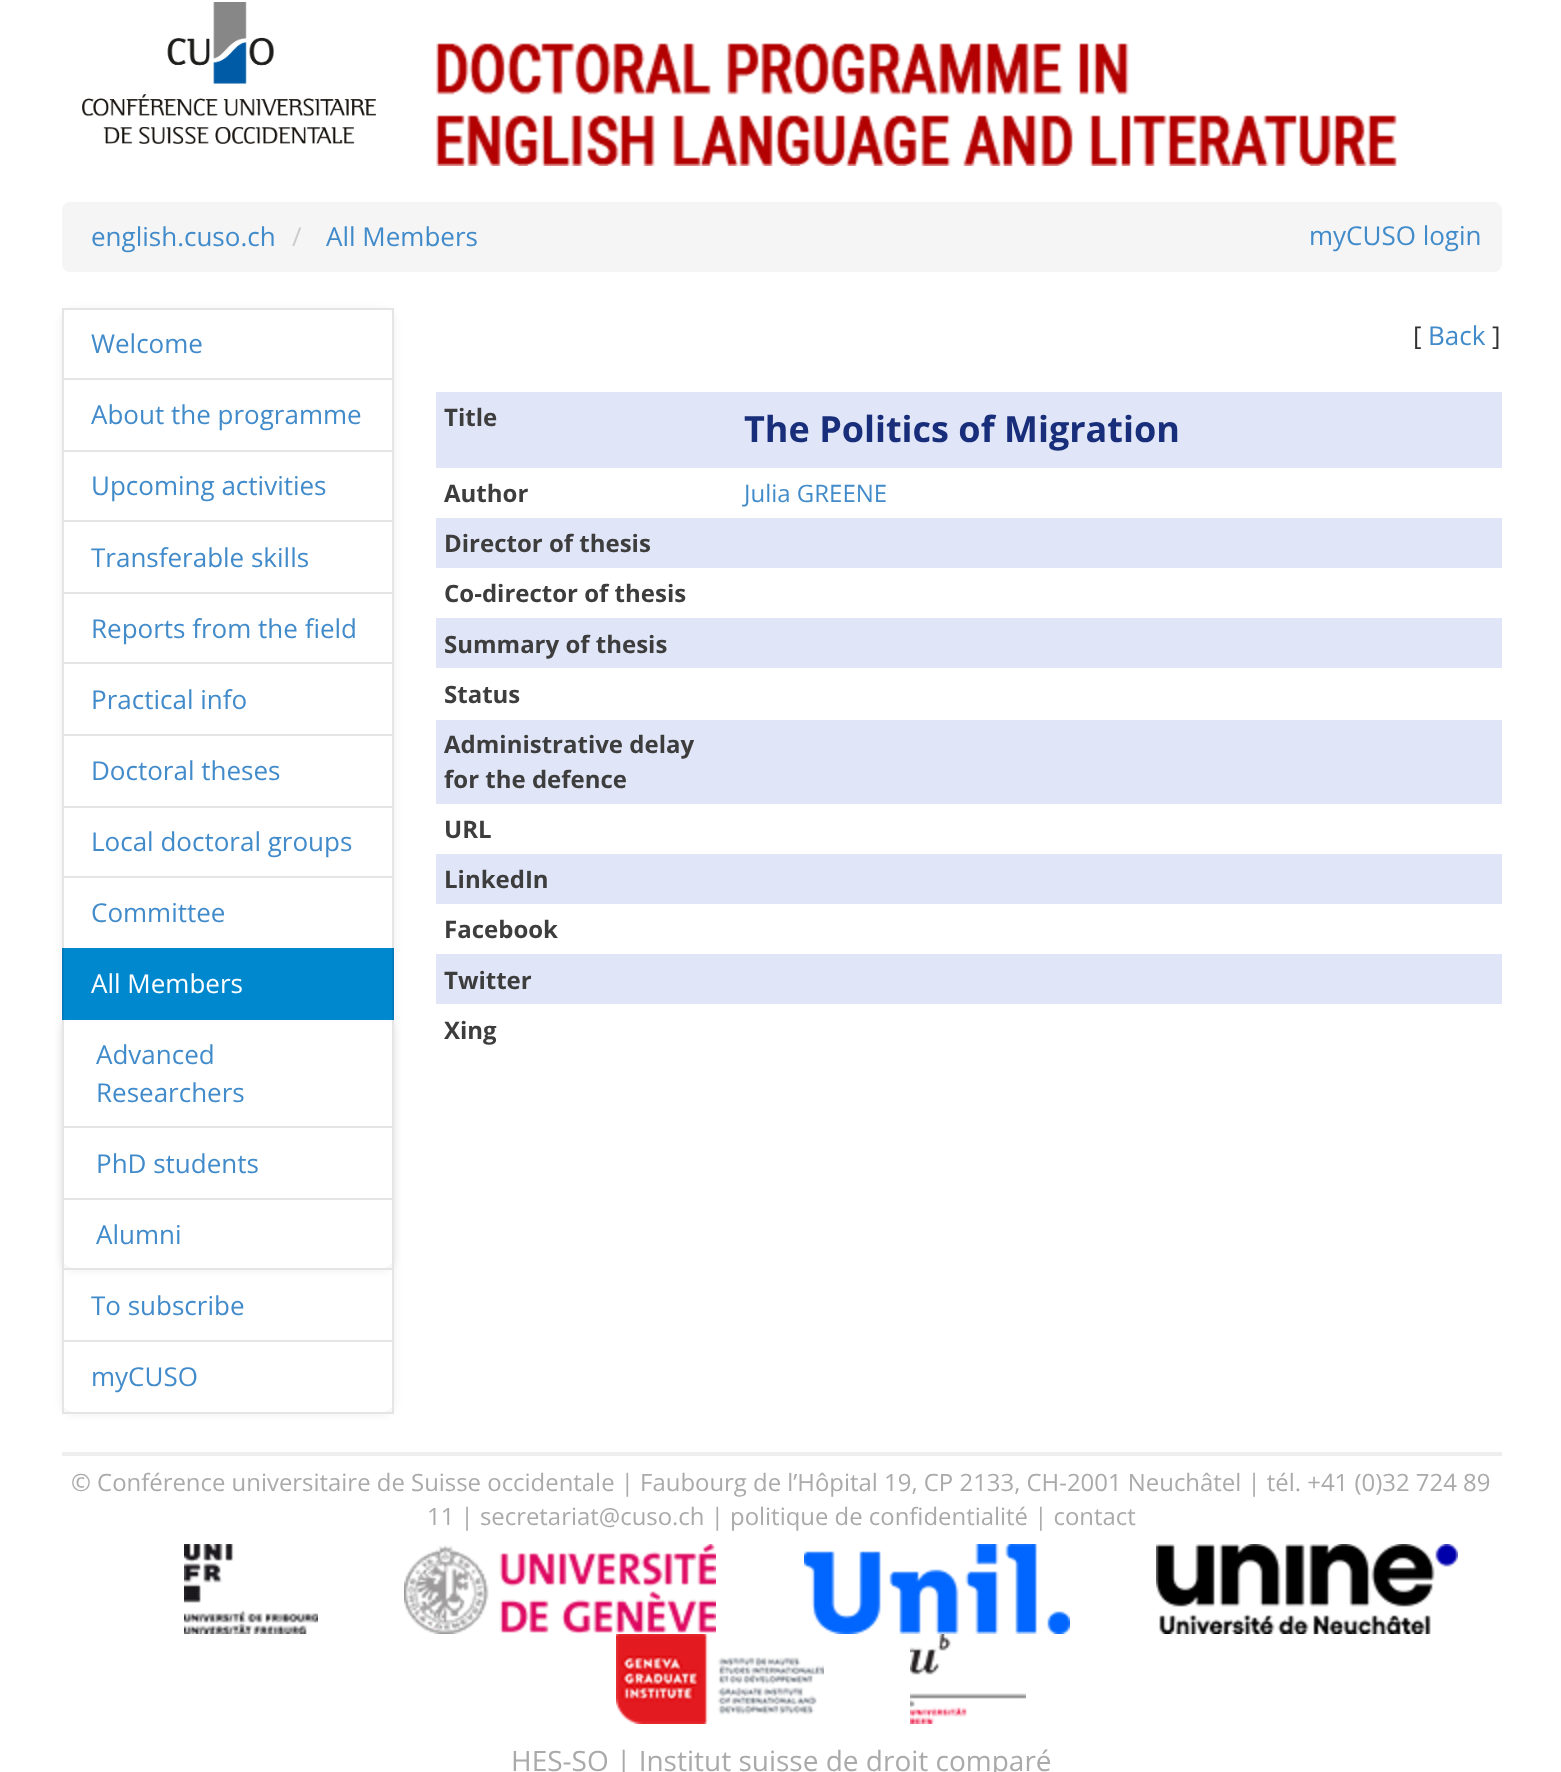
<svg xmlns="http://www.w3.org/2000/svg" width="1561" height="1772">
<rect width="100%" height="100%" fill="#fff"/>
<image x="82" y="2" width="294" height="142" href="media/1.png"/>
<image x="436" y="43" width="961" height="123" href="media/2.png"/>
<rect x="62" y="202" width="1440" height="70" rx="8" fill="#f5f5f5"/>
<text x="91" y="246" style="font-family:Open Sans;font-size:26px;fill:#428bca">english.cuso.ch</text>
<text x="292" y="246" style="font-family:Open Sans;font-size:26px;fill:#ccc">/</text>
<text x="326" y="246" style="font-family:Open Sans;font-size:26px;fill:#428bca">All Members</text>
<text x="1309" y="245" style="font-family:Open Sans;font-size:26px;fill:#428bca">myCUSO login</text>
<rect x="62" y="310" width="332" height="1104" rx="12" fill="#00000012" filter="blur(4px)"/>
<rect x="62" y="308" width="332" height="1104" rx="12" fill="#fff"/>
<rect x="63" y="309" width="330" height="70" fill="none" stroke="#e5e5e5" stroke-width="2"/>
<text x="91" y="353" style="font-family:Open Sans;font-size:26px;fill:#428bca">Welcome</text>
<rect x="63" y="379" width="330" height="72" fill="none" stroke="#e5e5e5" stroke-width="2"/>
<text x="91" y="424" style="font-family:Open Sans;font-size:26px;fill:#428bca">About the programme</text>
<rect x="63" y="451" width="330" height="70" fill="none" stroke="#e5e5e5" stroke-width="2"/>
<text x="91" y="495" style="font-family:Open Sans;font-size:26px;fill:#428bca">Upcoming activities</text>
<rect x="63" y="521" width="330" height="72" fill="none" stroke="#e5e5e5" stroke-width="2"/>
<text x="91" y="567" style="font-family:Open Sans;font-size:26px;fill:#428bca">Transferable skills</text>
<rect x="63" y="593" width="330" height="70" fill="none" stroke="#e5e5e5" stroke-width="2"/>
<text x="91" y="638" style="font-family:Open Sans;font-size:26px;fill:#428bca">Reports from the field</text>
<rect x="63" y="663" width="330" height="72" fill="none" stroke="#e5e5e5" stroke-width="2"/>
<text x="91" y="709" style="font-family:Open Sans;font-size:26px;fill:#428bca">Practical info</text>
<rect x="63" y="735" width="330" height="72" fill="none" stroke="#e5e5e5" stroke-width="2"/>
<text x="91" y="780" style="font-family:Open Sans;font-size:26px;fill:#428bca">Doctoral theses</text>
<rect x="63" y="807" width="330" height="70" fill="none" stroke="#e5e5e5" stroke-width="2"/>
<text x="91" y="851" style="font-family:Open Sans;font-size:26px;fill:#428bca">Local doctoral groups</text>
<rect x="63" y="877" width="330" height="72" fill="none" stroke="#e5e5e5" stroke-width="2"/>
<text x="91" y="922" style="font-family:Open Sans;font-size:26px;fill:#428bca">Committee</text>
<rect x="62" y="1020" width="332" height="250" rx="12" fill="#00000012" filter="blur(4px)"/>
<rect x="62" y="1018" width="332" height="250" rx="12" fill="#fff"/>
<rect x="63" y="1019" width="330" height="108" fill="none" stroke="#e5e5e5" stroke-width="2"/>
<rect x="64" y="948" width="328" height="72" fill="#0088cf"/>
<rect x="392" y="948" width="2" height="72" fill="#007aba"/>
<rect x="62" y="948" width="2" height="72" fill="#007aba"/>
<text x="91" y="993" style="font-family:Open Sans;font-size:26px;fill:#fff">All Members</text>
<text x="96" y="1064" style="font-family:Open Sans;font-size:26px;fill:#428bca">Advanced</text>
<text x="96" y="1102" style="font-family:Open Sans;font-size:26px;fill:#428bca">Researchers</text>
<rect x="63" y="1127" width="330" height="72" fill="none" stroke="#e5e5e5" stroke-width="2"/>
<text x="96" y="1173" style="font-family:Open Sans;font-size:26px;fill:#428bca">PhD students</text>
<rect x="63" y="1199" width="330" height="70" fill="none" stroke="#e5e5e5" stroke-width="2"/>
<text x="96" y="1244" style="font-family:Open Sans;font-size:26px;fill:#428bca">Alumni</text>
<rect x="63" y="1269" width="330" height="72" fill="none" stroke="#e5e5e5" stroke-width="2"/>
<text x="91" y="1315" style="font-family:Open Sans;font-size:26px;fill:#428bca">To subscribe</text>
<rect x="63" y="1341" width="330" height="72" fill="none" stroke="#e5e5e5" stroke-width="2"/>
<text x="91" y="1386" style="font-family:Open Sans;font-size:26px;fill:#428bca">myCUSO</text>
<text x="1413" y="345" style="font-family:Open Sans;font-size:26px;fill:#333">[</text>
<text x="1428" y="345" style="font-family:Open Sans;font-size:26px;fill:#428bca">Back</text>
<text x="1492" y="345" style="font-family:Open Sans;font-size:26px;fill:#333">]</text>
<rect x="436" y="392" width="1066" height="76" fill="#e0e6f7"/>
<text x="444" y="426" style="font-family:Open Sans;font-size:24px;font-weight:bold;fill:#3d3d3d">Title</text>
<text x="744" y="442" style="font-family:Open Sans;font-size:36px;font-weight:bold;fill:#182e7a">The Politics of Migration</text>
<text x="444" y="502" style="font-family:Open Sans;font-size:24px;font-weight:bold;fill:#3d3d3d">Author</text>
<text x="744" y="502" style="font-family:Open Sans;font-size:24px;fill:#428bca">Julia GREENE</text>
<rect x="436" y="518" width="1066" height="50" fill="#e0e6f7"/>
<text x="444" y="552" style="font-family:Open Sans;font-size:24px;font-weight:bold;fill:#3d3d3d">Director of thesis</text>
<text x="444" y="602" style="font-family:Open Sans;font-size:24px;font-weight:bold;fill:#3d3d3d">Co-director of thesis</text>
<rect x="436" y="618" width="1066" height="50" fill="#e0e6f7"/>
<text x="444" y="653" style="font-family:Open Sans;font-size:24px;font-weight:bold;fill:#3d3d3d">Summary of thesis</text>
<text x="444" y="703" style="font-family:Open Sans;font-size:24px;font-weight:bold;fill:#3d3d3d">Status</text>
<rect x="436" y="720" width="1066" height="84" fill="#e0e6f7"/>
<text x="444" y="753" style="font-family:Open Sans;font-size:24px;font-weight:bold;fill:#3d3d3d">Administrative delay</text>
<text x="444" y="788" style="font-family:Open Sans;font-size:24px;font-weight:bold;fill:#3d3d3d">for the defence</text>
<text x="444" y="838" style="font-family:Open Sans;font-size:24px;font-weight:bold;fill:#3d3d3d">URL</text>
<rect x="436" y="854" width="1066" height="50" fill="#e0e6f7"/>
<text x="444" y="888" style="font-family:Open Sans;font-size:24px;font-weight:bold;fill:#3d3d3d">LinkedIn</text>
<text x="444" y="938" style="font-family:Open Sans;font-size:24px;font-weight:bold;fill:#3d3d3d">Facebook</text>
<rect x="436" y="954" width="1066" height="50" fill="#e0e6f7"/>
<text x="444" y="989" style="font-family:Open Sans;font-size:24px;font-weight:bold;fill:#3d3d3d">Twitter</text>
<text x="444" y="1039" style="font-family:Open Sans;font-size:24px;font-weight:bold;fill:#3d3d3d">Xing</text>
<rect x="62" y="1452" width="1440" height="4" fill="#eee"/>
<text x="71" y="1491" style="font-family:Open Sans;font-size:23.92px;fill:#aaa">© Conférence universitaire de Suisse occidentale | Faubourg de l’Hôpital 19, CP 2133, CH-2001 Neuchâtel | tél. +41 (0)32 724 89</text>
<text x="427" y="1525" style="font-family:Open Sans;font-size:23.92px;fill:#aaa">11 | secretariat@cuso.ch | politique de confidentialité | contact</text>
<image x="184" y="1544" width="134" height="90" href="media/3.png"/>
<image x="404" y="1544" width="312" height="90" href="media/4.png"/>
<image x="804" y="1544" width="266" height="90" href="media/5.png"/>
<image x="1156" y="1544" width="302" height="90" href="media/6.png"/>
<image x="616" y="1634" width="208" height="90" href="media/7.png"/>
<image x="910" y="1634" width="116" height="90" href="media/8.png"/>
<text x="511" y="1771" style="font-family:Open Sans;font-size:28px;fill:#aaa">HES-SO | Institut suisse de droit comparé</text>
</svg>
